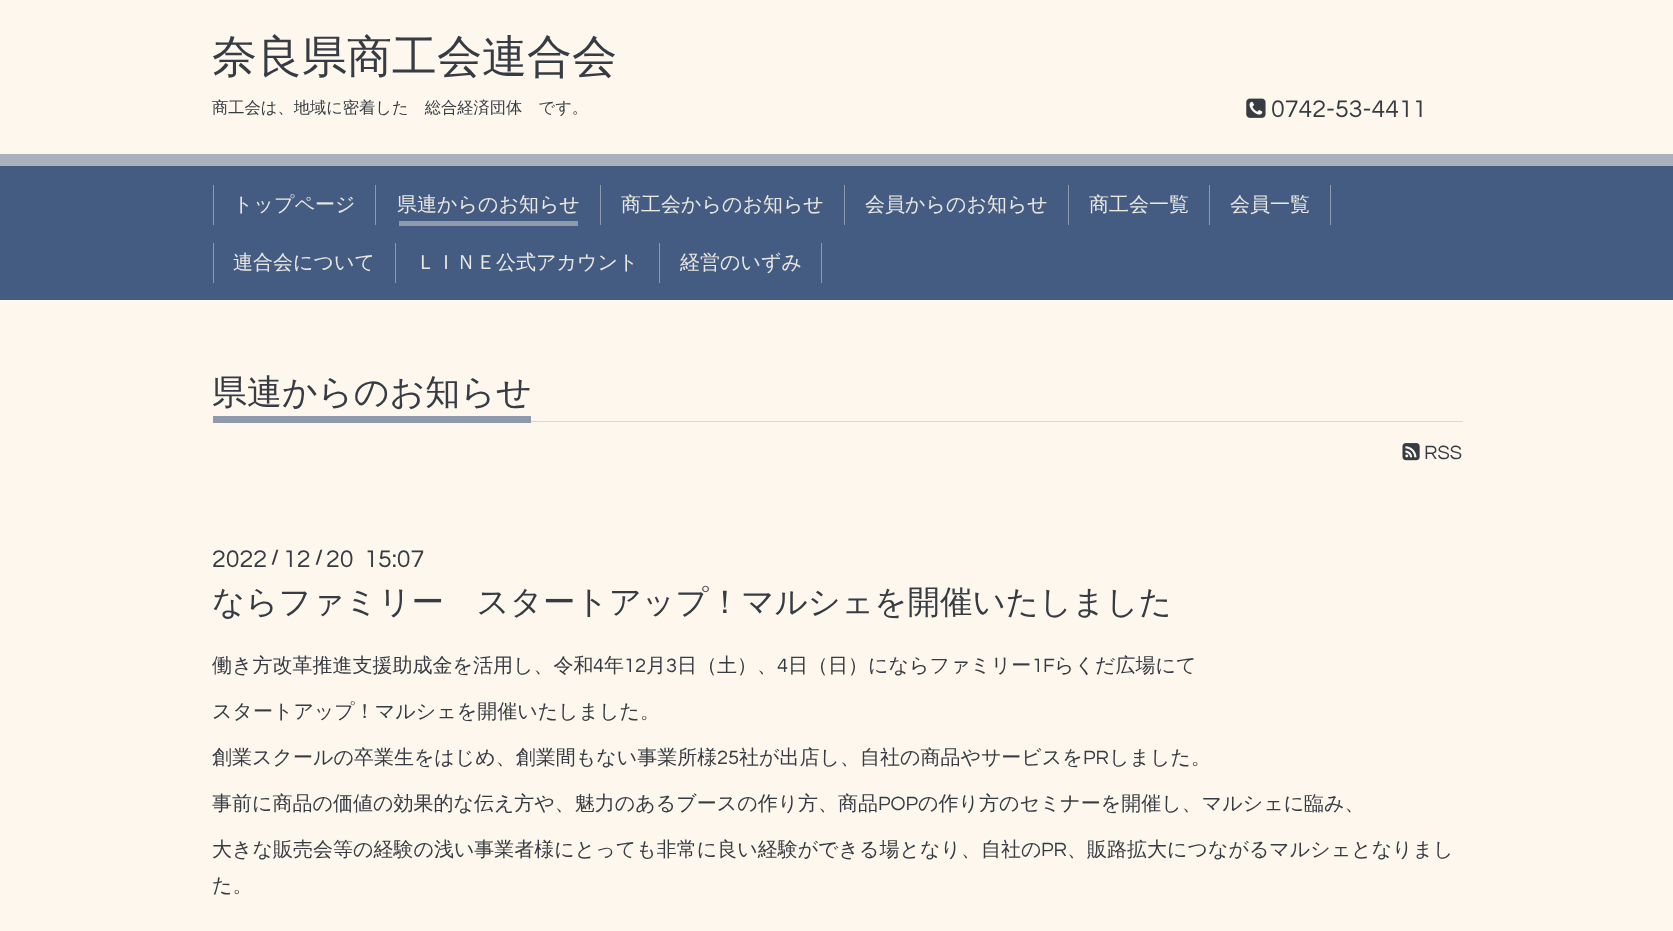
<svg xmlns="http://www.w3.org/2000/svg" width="1673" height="931">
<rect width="100%" height="100%" fill="#fdf7ed"/>
<text x="212" y="72" style="font-family:WenQuanYi Zen Hei;font-size:45px;font-weight:500;fill:#373b43">奈良県商工会連合会</text>
<text x="212" y="113" style="font-family:WenQuanYi Zen Hei;font-size:16.25px;font-weight:500;fill:#373b43">商工会は、地域に密着した　総合経済団体　です。</text>
<image x="1246" y="98" width="20" height="20" href="media/1.png"/>
<text x="1271" y="117" style="font-family:Questrial;font-size:25px;fill:#373b43">0742-53-4411</text>
<rect y="154" width="1673" height="12" fill="#aab1bd"/>
<rect y="166" width="1673" height="134" fill="#455c82"/>
<rect x="375" y="185" width="1" height="40" fill="#8f9aad"/>
<rect x="213" y="185" width="1" height="40" fill="#8f9aad"/>
<text x="233" y="211" style="font-family:WenQuanYi Zen Hei;font-size:20px;font-weight:500;fill:#ebe8e2">トップページ</text>
<rect x="600" y="185" width="1" height="40" fill="#8f9aad"/>
<text x="397" y="211" style="font-family:WenQuanYi Zen Hei;font-size:20px;font-weight:500;fill:#ebe8e2">県連からのお知らせ</text>
<rect x="399" y="221" width="179" height="5" fill="#8f9aad"/>
<rect x="844" y="185" width="1" height="40" fill="#8f9aad"/>
<text x="621" y="211" style="font-family:WenQuanYi Zen Hei;font-size:20px;font-weight:500;fill:#ebe8e2">商工会からのお知らせ</text>
<rect x="1068" y="185" width="1" height="40" fill="#8f9aad"/>
<text x="865" y="211" style="font-family:WenQuanYi Zen Hei;font-size:20px;font-weight:500;fill:#ebe8e2">会員からのお知らせ</text>
<rect x="1209" y="185" width="1" height="40" fill="#8f9aad"/>
<text x="1089" y="211" style="font-family:WenQuanYi Zen Hei;font-size:20px;font-weight:500;fill:#ebe8e2">商工会一覧</text>
<rect x="1330" y="185" width="1" height="40" fill="#8f9aad"/>
<text x="1230" y="211" style="font-family:WenQuanYi Zen Hei;font-size:20px;font-weight:500;fill:#ebe8e2">会員一覧</text>
<rect x="395" y="243" width="1" height="40" fill="#8f9aad"/>
<rect x="213" y="243" width="1" height="40" fill="#8f9aad"/>
<text x="233" y="269" style="font-family:WenQuanYi Zen Hei;font-size:20px;font-weight:500;fill:#ebe8e2">連合会について</text>
<rect x="659" y="243" width="1" height="40" fill="#8f9aad"/>
<text x="416" y="269" style="font-family:WenQuanYi Zen Hei;font-size:20px;font-weight:500;fill:#ebe8e2">ＬＩＮＥ公式アカウント</text>
<rect x="821" y="243" width="1" height="40" fill="#8f9aad"/>
<text x="680" y="269" style="font-family:WenQuanYi Zen Hei;font-size:20px;font-weight:500;fill:#ebe8e2">経営のいずみ</text>
<rect x="531" y="421" width="932" height="1" fill="#d8d8d8"/>
<rect x="213" y="416" width="318" height="7" fill="#8f9aad"/>
<text x="212" y="404" style="font-family:WenQuanYi Zen Hei;font-size:35px;font-weight:500;fill:#373b43">県連からのお知らせ</text>
<image x="1402" y="443" width="18" height="18" href="media/2.png"/>
<text x="1424" y="459" style="font-family:Questrial;font-size:20px;fill:#373b43">RSS</text>
<text x="212" y="567" style="font-family:Questrial;font-size:25px;fill:#373b43">2022</text>
<text x="271" y="564" style="font-family:Questrial;font-size:20px;font-weight:bold;fill:#373b43">/</text>
<text x="283" y="567" style="font-family:Questrial;font-size:25px;fill:#373b43">12</text>
<text x="315" y="564" style="font-family:Questrial;font-size:20px;font-weight:bold;fill:#373b43">/</text>
<text x="326" y="567" style="font-family:Questrial;font-size:25px;fill:#373b43" xml:space="preserve">20  15:07</text>
<text x="212" y="613" style="font-family:WenQuanYi Zen Hei;font-size:32.5px;font-weight:500;fill:#373b43">ならファミリー　スタートアップ！マルシェを開催いたしました</text>
<text x="212" y="672" style="font-family:WenQuanYi Zen Hei;font-size:20px;font-weight:500;fill:#373b43">働き方改革推進支援助成金を活用し、令和</text>
<text x="593" y="672" style="font-family:Questrial;font-size:20px;fill:#373b43">4</text>
<text x="604" y="672" style="font-family:WenQuanYi Zen Hei;font-size:20px;font-weight:500;fill:#373b43">年</text>
<text x="624" y="672" style="font-family:Questrial;font-size:20px;fill:#373b43">12</text>
<text x="646" y="672" style="font-family:WenQuanYi Zen Hei;font-size:20px;font-weight:500;fill:#373b43">月</text>
<text x="666" y="672" style="font-family:Questrial;font-size:20px;fill:#373b43">3</text>
<text x="677" y="672" style="font-family:WenQuanYi Zen Hei;font-size:20px;font-weight:500;fill:#373b43">日（土）、</text>
<text x="777" y="672" style="font-family:Questrial;font-size:20px;fill:#373b43">4</text>
<text x="788" y="672" style="font-family:WenQuanYi Zen Hei;font-size:20px;font-weight:500;fill:#373b43">日（日）にならファミリー</text>
<text x="1032" y="672" style="font-family:Questrial;font-size:20px;fill:#373b43">1F</text>
<text x="1054" y="672" style="font-family:WenQuanYi Zen Hei;font-size:20px;font-weight:500;fill:#373b43">らくだ広場にて</text>
<text x="212" y="718" style="font-family:WenQuanYi Zen Hei;font-size:20px;font-weight:500;fill:#373b43">スタートアップ！マルシェを開催いたしました。</text>
<text x="212" y="764" style="font-family:WenQuanYi Zen Hei;font-size:20px;font-weight:500;fill:#373b43">創業スクールの卒業生をはじめ、創業間もない事業所様</text>
<text x="717" y="764" style="font-family:Questrial;font-size:20px;fill:#373b43">25</text>
<text x="739" y="764" style="font-family:WenQuanYi Zen Hei;font-size:20px;font-weight:500;fill:#373b43">社が出店し、自社の商品やサービスを</text>
<text x="1083" y="764" style="font-family:Questrial;font-size:20px;fill:#373b43">PR</text>
<text x="1109" y="764" style="font-family:WenQuanYi Zen Hei;font-size:20px;font-weight:500;fill:#373b43">しました。</text>
<text x="212" y="810" style="font-family:WenQuanYi Zen Hei;font-size:20px;font-weight:500;fill:#373b43">事前に商品の価値の効果的な伝え方や、魅力のあるブースの作り方、商品</text>
<text x="878" y="810" style="font-family:Questrial;font-size:20px;fill:#373b43">POP</text>
<text x="918" y="810" style="font-family:WenQuanYi Zen Hei;font-size:20px;font-weight:500;fill:#373b43">の作り方のセミナーを開催し、マルシェに臨み、</text>
<text x="212" y="856" style="font-family:WenQuanYi Zen Hei;font-size:20px;font-weight:500;fill:#373b43">大きな販売会等の経験の浅い事業者様にとっても非常に良い経験ができる場となり、自社の</text>
<text x="1041" y="856" style="font-family:Questrial;font-size:20px;fill:#373b43">PR</text>
<text x="1067" y="856" style="font-family:WenQuanYi Zen Hei;font-size:20px;font-weight:500;fill:#373b43">、販路拡大につながるマルシェとなりまし</text>
<text x="212" y="892" style="font-family:WenQuanYi Zen Hei;font-size:20px;font-weight:500;fill:#373b43">た。</text>
</svg>
